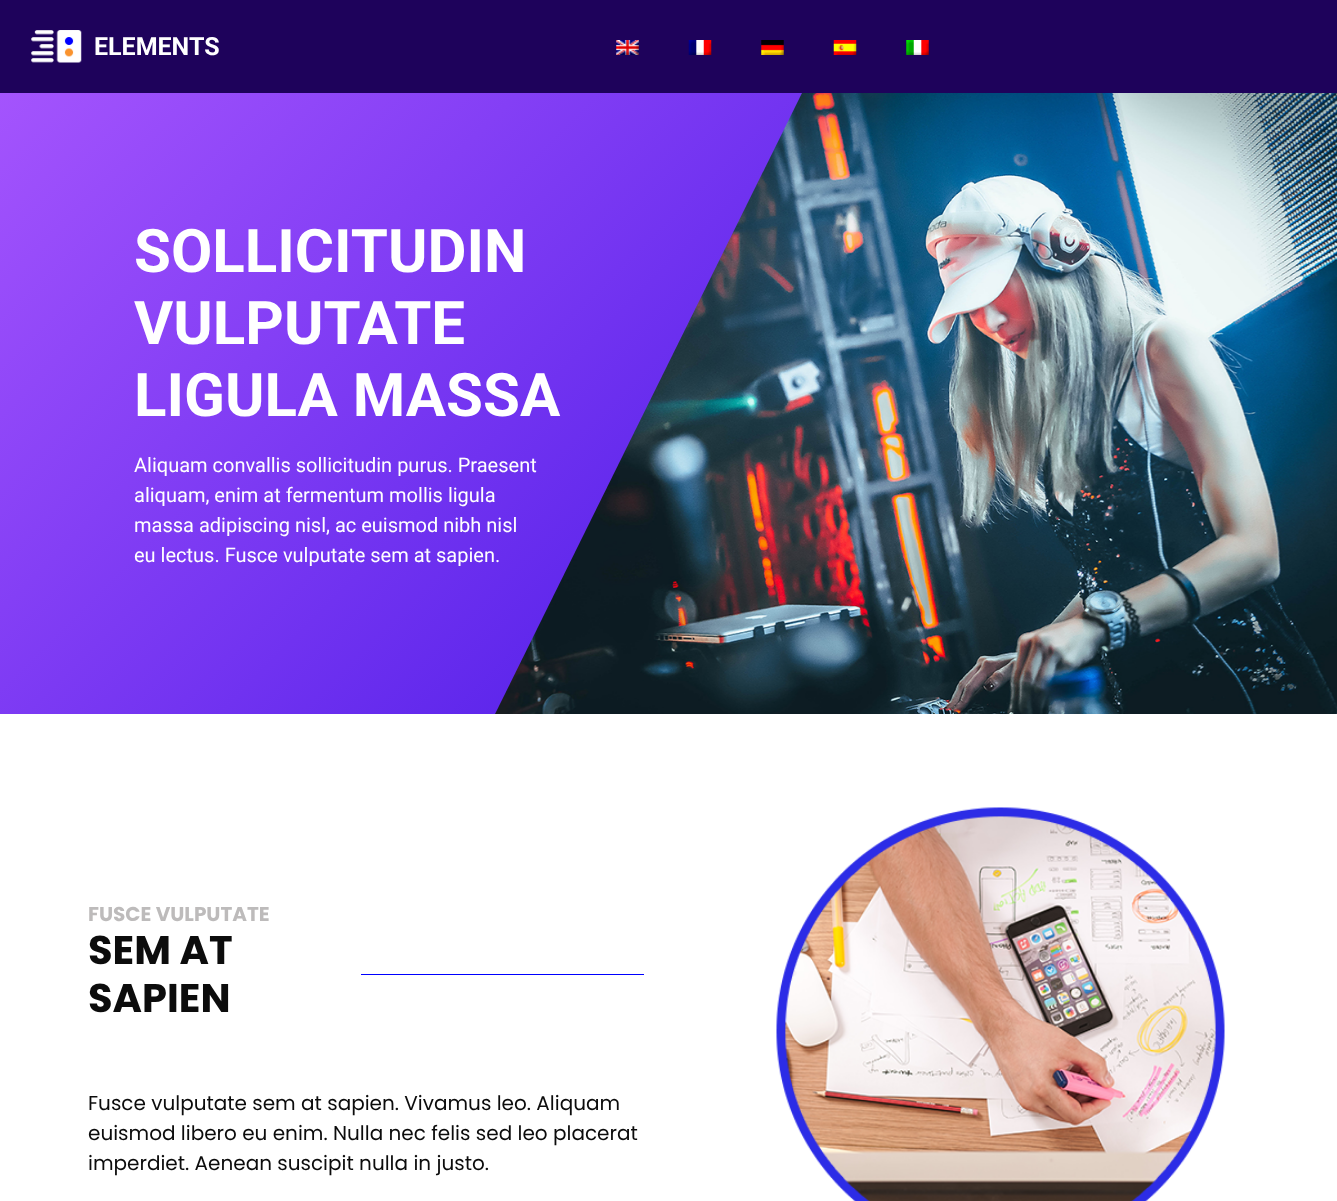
<svg xmlns="http://www.w3.org/2000/svg" width="1337" height="1201">
<defs>
<linearGradient id="g1" gradientUnits="userSpaceOnUse" x1="179" y1="-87" x2="1158" y2="893"><stop offset="0" stop-color="#a454fd"/><stop offset="1" stop-color="#2b05df"/></linearGradient>
</defs>
<rect width="100%" height="100%" fill="#fff"/>
<rect width="1337" height="93" fill="#1e025b"/>
<image x="31" y="30" width="51" height="33" href="media/1.png"/>
<text x="94" y="55" style="font-family:Roboto;font-size:25px;font-weight:bold;fill:#fff">ELEMENTS</text>
<image x="616" y="40" width="23" height="15" href="media/2.png"/>
<image x="688" y="40" width="24" height="15" href="media/3.png"/>
<image x="761" y="40" width="23" height="15" href="media/4.png"/>
<image x="833" y="40" width="24" height="15" href="media/5.png"/>
<image x="906" y="40" width="23" height="15" href="media/6.png"/>
<image x="495" y="93" width="842" height="621" href="media/7.png"/>
<path d="M0 93v621h495l307-621z" fill="url(#g1)"/>
<text x="134" y="272" style="font-family:Roboto;font-size:60px;font-weight:bold;fill:#fff">SOLLICITUDIN</text>
<text x="134" y="344" style="font-family:Roboto;font-size:60px;font-weight:bold;fill:#fff">VULPUTATE</text>
<text x="134" y="416" style="font-family:Roboto;font-size:60px;font-weight:bold;fill:#fff">LIGULA MASSA</text>
<text x="134" y="472" style="font-family:Roboto;font-size:20px;fill:#fff">Aliquam convallis sollicitudin purus. Praesent</text>
<text x="134" y="502" style="font-family:Roboto;font-size:20px;fill:#fff">aliquam, enim at fermentum mollis ligula</text>
<text x="134" y="532" style="font-family:Roboto;font-size:20px;fill:#fff">massa adipiscing nisl, ac euismod nibh nisl</text>
<text x="134" y="562" style="font-family:Roboto;font-size:20px;fill:#fff">eu lectus. Fusce vulputate sem at sapien.</text>
<text x="88" y="921" style="font-family:Poppins;font-size:20px;font-weight:bold;fill:#bdbbbb">FUSCE VULPUTATE</text>
<text x="88" y="964" style="font-family:Poppins;font-size:40px;font-weight:bold;fill:#0c0c0c">SEM AT</text>
<text x="88" y="1012" style="font-family:Poppins;font-size:40px;font-weight:bold;fill:#0c0c0c">SAPIEN</text>
<rect x="361" y="974" width="283" height="1" fill="#00f"/>
<text x="88" y="1110" style="font-family:Poppins;font-size:20px;fill:#0c0c0c">Fusce vulputate sem at sapien. Vivamus leo. Aliquam</text>
<text x="88" y="1140" style="font-family:Poppins;font-size:20px;fill:#0c0c0c">euismod libero eu enim. Nulla nec felis sed leo placerat</text>
<text x="88" y="1170" style="font-family:Poppins;font-size:20px;fill:#0c0c0c">imperdiet. Aenean suscipit nulla in justo.</text>
<image x="776" y="807" width="449" height="394" href="media/8.png"/>
</svg>
